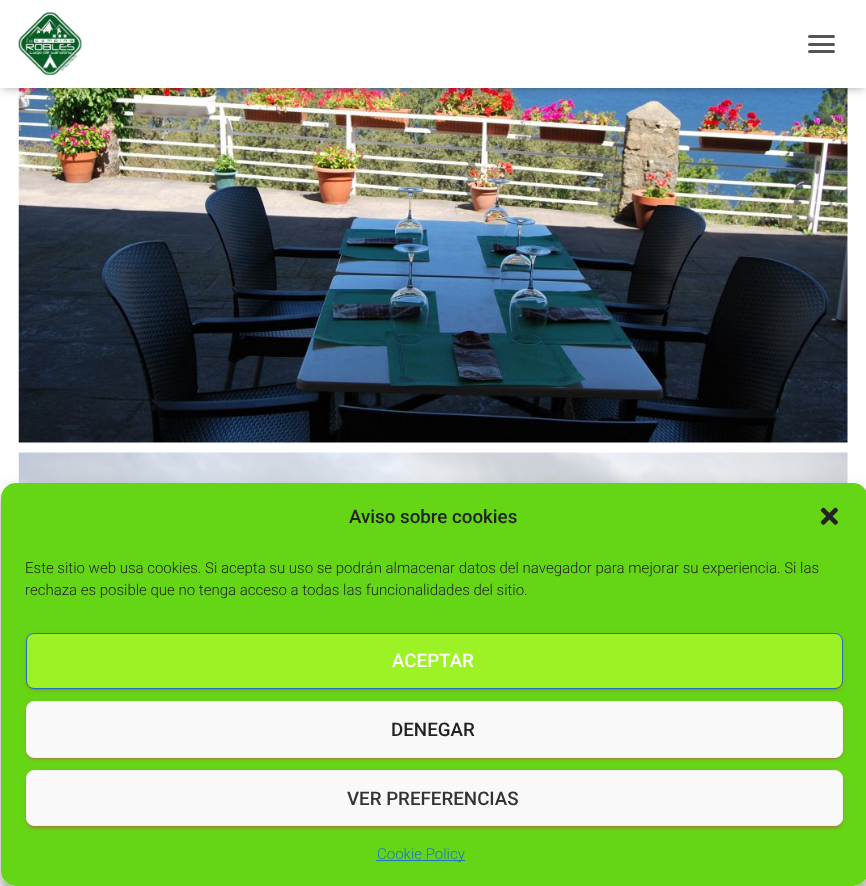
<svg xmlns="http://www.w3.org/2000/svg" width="866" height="886">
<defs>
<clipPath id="clip1"><path d="M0 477h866v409h-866zm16 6h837c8.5 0 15 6.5 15 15v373c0 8.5-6.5 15-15 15h-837c-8.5 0-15-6.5-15-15v-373c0-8.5 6.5-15 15-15z" clip-rule="evenodd"/></clipPath>
<clipPath id="clip2"><path d="M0 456h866v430h-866zm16 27h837c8.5 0 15 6.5 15 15v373c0 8.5-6.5 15-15 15h-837c-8.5 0-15-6.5-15-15v-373c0-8.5 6.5-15 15-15z" clip-rule="evenodd"/></clipPath>
</defs>
<rect width="100%" height="100%" fill="#fff"/>
<image x="18" y="88" width="830" height="355" href="media/2.png"/>
<rect x="3" y="8" width="861" height="82" fill="#0000001a" filter="blur(3px)"/>
<rect y="1" width="866" height="88" fill="#0000001f" filter="blur(6px)"/>
<rect x="8" y="9" width="851" height="72" fill="#0000006b" filter="blur(6px)"/>
<rect width="866" height="88" fill="#fff"/>
<image x="18" y="12" width="64" height="63" href="media/1.png"/>
<rect x="808" y="35" width="27" height="3" rx="1.5" fill="#555"/>
<rect x="808" y="43" width="27" height="3" rx="1.5" fill="#555"/>
<rect x="808" y="50" width="27" height="3" rx="1.5" fill="#555"/>
<image x="18" y="452" width="830" height="31" href="media/3.png"/>
<g clip-path="url(#clip1)">
<rect x="1" y="490" width="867" height="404" rx="15" fill="#0000003b" filter="blur(4px)"/>
</g>
<g clip-path="url(#clip2)">
<rect x="1" y="495" width="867" height="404" rx="15" fill="#00000030" filter="blur(12.5px)"/>
</g>
<rect x="1" y="483" width="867" height="403" rx="15" fill="#65d615"/>
<text x="349" y="523" style="font-family:Roboto;font-size:18.75px;font-weight:500;fill:#222">Aviso sobre cookies</text>
<image x="820" y="507" width="18" height="18" href="media/4.png"/>
<text x="25" y="573" style="font-family:Roboto;font-size:15px;font-weight:300;fill:#222">Este sitio web usa cookies. Si acepta su uso se podrán almacenar datos del navegador para mejorar su experiencia. Si las</text>
<text x="25" y="595" style="font-family:Roboto;font-size:15px;font-weight:300;fill:#222">rechaza es posible que no tenga acceso a todas las funcionalidades del sitio.</text>
<rect x="26" y="634" width="817" height="56" rx="8" fill="#e91e631f" filter="blur(3px)"/>
<rect x="29" y="639" width="811" height="51" rx="5" fill="#e91e6333" filter="blur(0.5px)"/>
<rect x="26" y="635" width="817" height="56" rx="8" fill="#e91e6324" filter="blur(1px)"/>
<rect x="26.5" y="633.5" width="816" height="55" rx="7.5" fill="#9cf224" stroke="#1e73be"/>
<text x="392" y="667" style="font-family:Roboto;font-size:18.75px;font-weight:500;fill:#fff">ACEPTAR</text>
<rect x="26" y="703" width="817" height="56" rx="8" fill="#e91e631f" filter="blur(3px)"/>
<rect x="29" y="708" width="811" height="51" rx="5" fill="#e91e6333" filter="blur(0.5px)"/>
<rect x="26" y="704" width="817" height="56" rx="8" fill="#e91e6324" filter="blur(1px)"/>
<rect x="26.5" y="701.5" width="816" height="56" rx="7.5" fill="#f9f9f9" stroke="#f2f2f2"/>
<text x="391" y="736" style="font-family:Roboto;font-size:18.75px;font-weight:500;fill:#222">DENEGAR</text>
<rect x="26" y="771" width="817" height="57" rx="8" fill="#e91e631f" filter="blur(3px)"/>
<rect x="29" y="776" width="811" height="52" rx="5" fill="#e91e6333" filter="blur(0.5px)"/>
<rect x="26" y="773" width="817" height="56" rx="8" fill="#e91e6324" filter="blur(1px)"/>
<rect x="26.5" y="770.5" width="816" height="55" rx="7.5" fill="#f9f9f9" stroke="#f2f2f2"/>
<text x="347" y="805" style="font-family:Roboto;font-size:18.75px;font-weight:500;fill:#333">VER PREFERENCIAS</text>
<rect x="376" y="860" width="89" height="1" fill="#1e73be"/>
<text x="377" y="859" style="font-family:Roboto;font-size:15px;font-weight:300;fill:#1e73be">Cookie Policy</text>
</svg>
